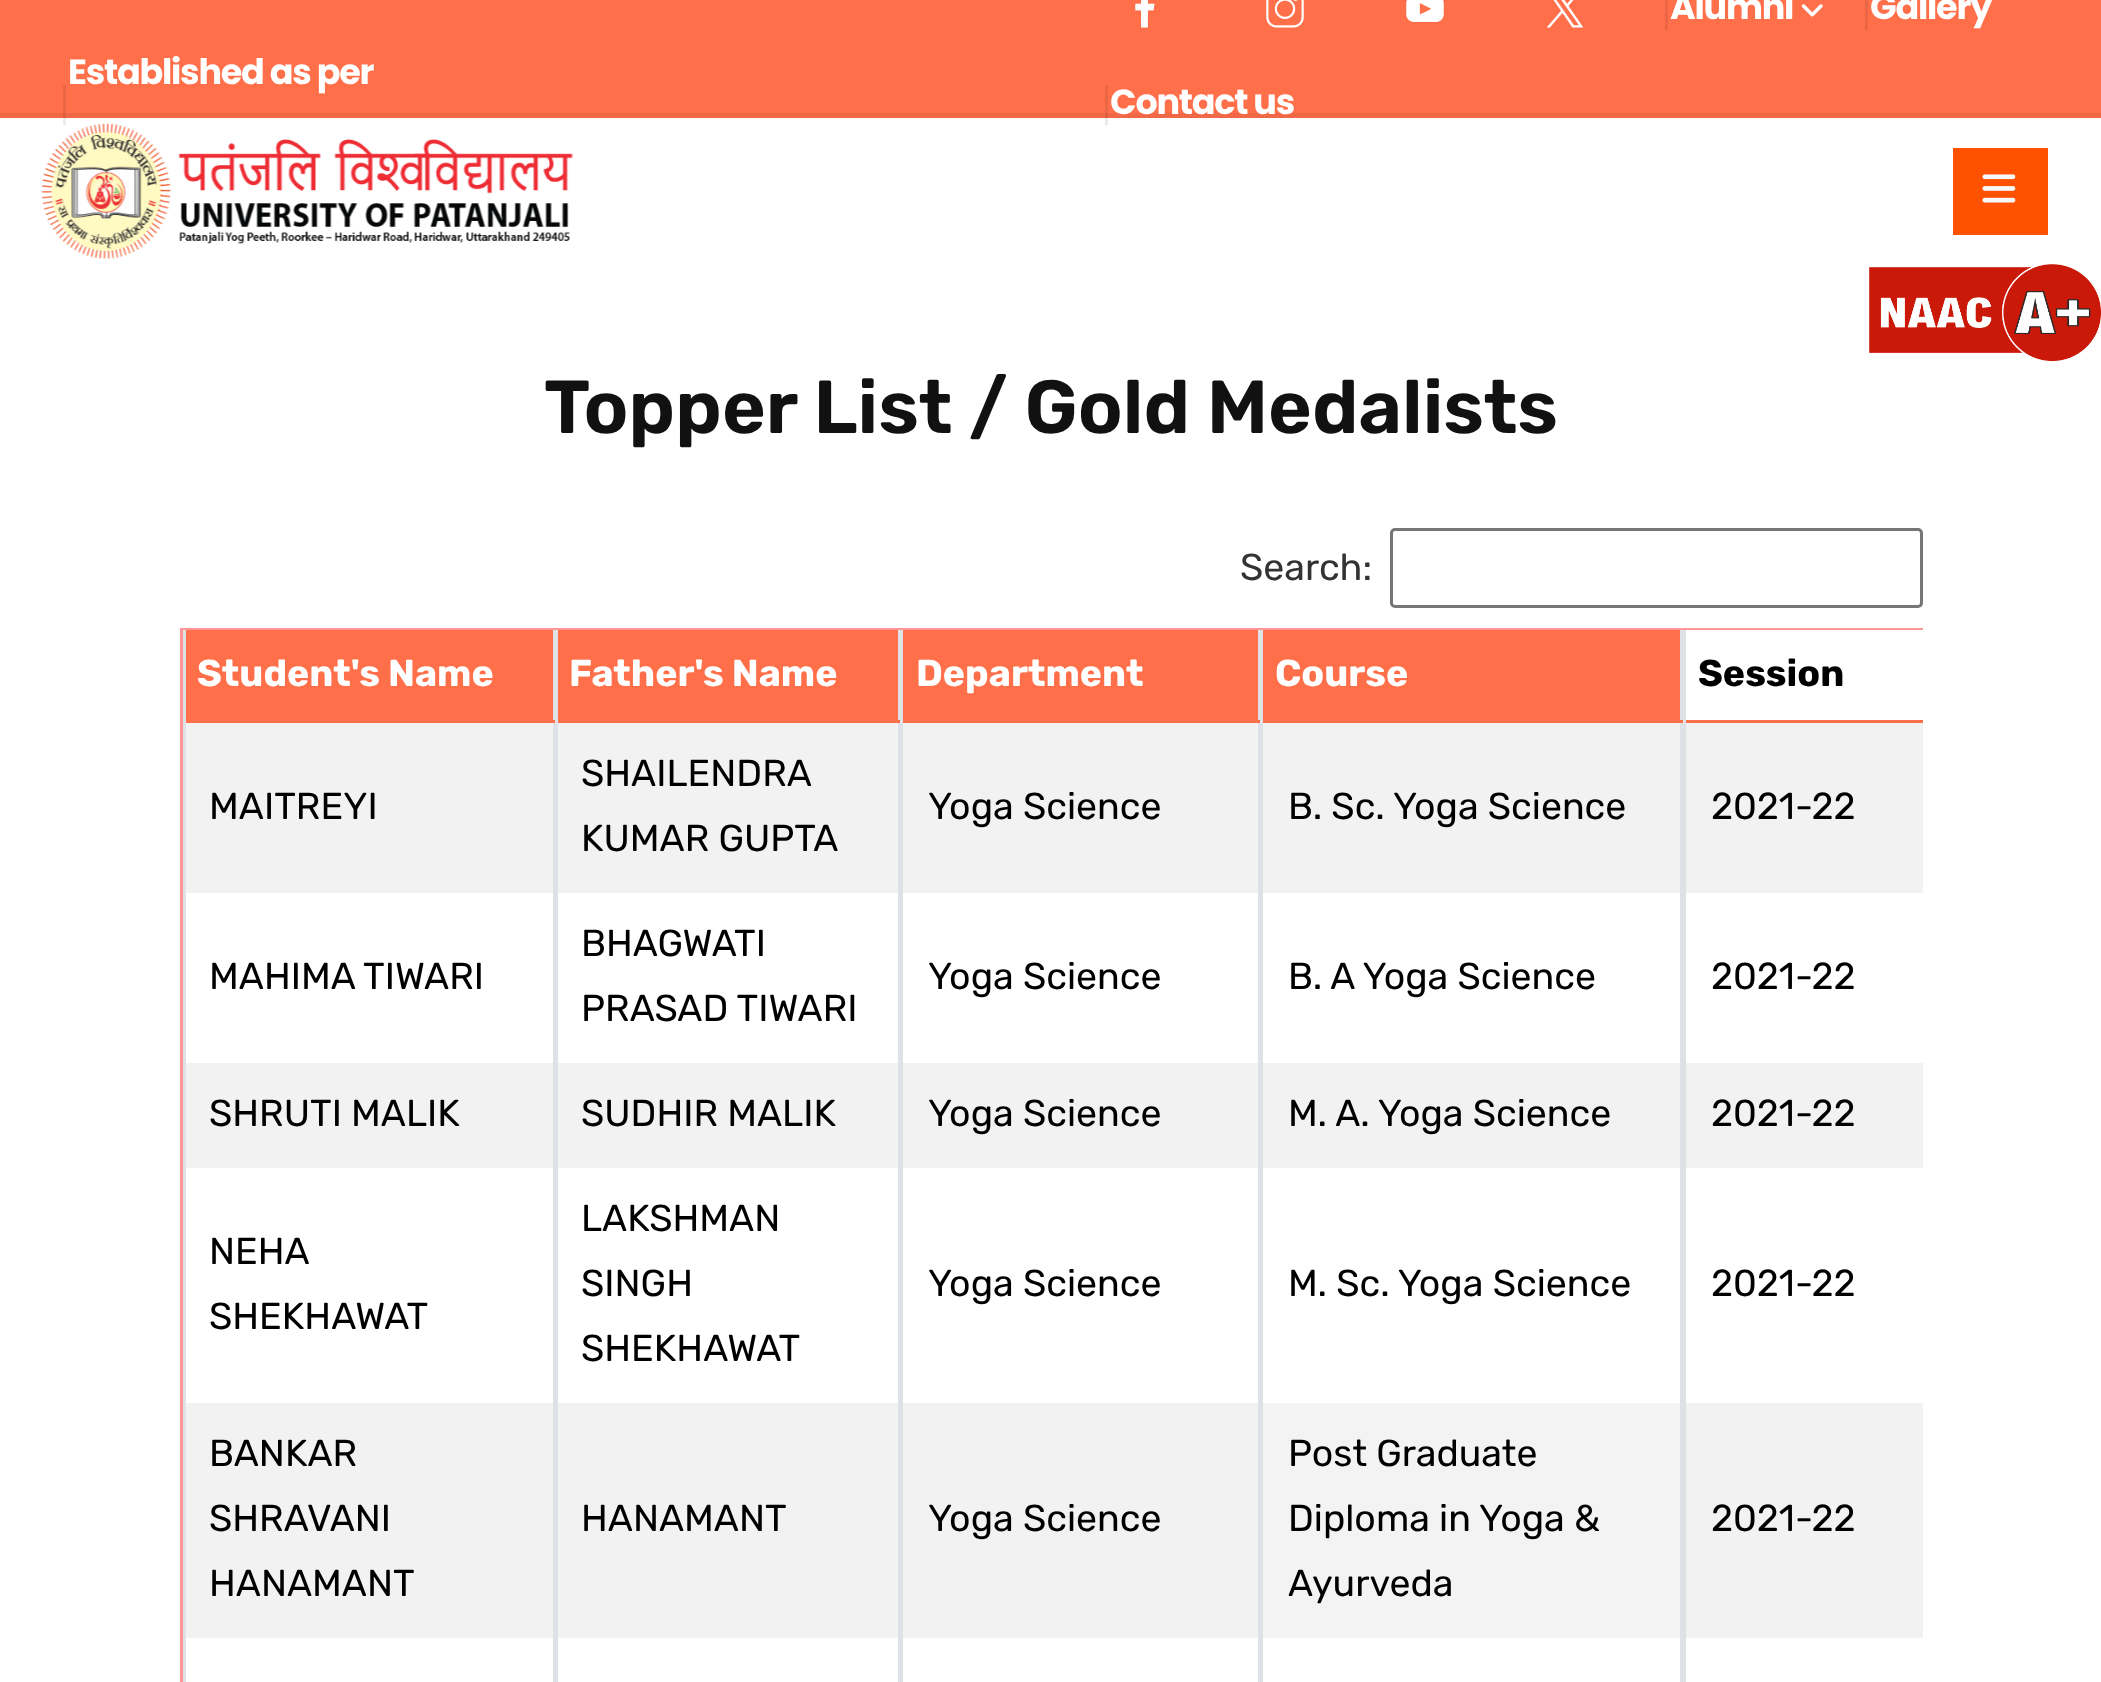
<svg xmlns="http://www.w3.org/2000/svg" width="2101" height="1682">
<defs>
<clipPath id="clip1"><rect x="180" y="528" width="1743" height="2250"/></clipPath>
</defs>
<rect width="100%" height="100%" fill="#fff"/>
<rect x="1105" y="118" width="3" height="7" fill="#ebebeb"/>
<rect x="63" y="118" width="3" height="7" fill="#ebebeb"/>
<rect width="2101" height="113" fill="#ff6f4a"/>
<rect x="1105" y="85" width="3" height="33" fill="#eb6644"/>
<rect x="63" y="85" width="3" height="33" fill="#eb6644"/>
<rect y="113" width="2101" height="5" fill="#f06846"/>
<rect x="1105" y="113" width="3" height="5" fill="#dd6040"/>
<rect x="63" y="113" width="3" height="5" fill="#dd6040"/>
<text x="68" y="84" style="font-family:Poppins;font-size:35px;font-weight:bold;letter-spacing:-1.25px;fill:#fff">Established as per</text>
<image x="1135" y="0" width="20" height="28" href="media/1.png"/>
<image x="1266" y="0" width="38" height="28" href="media/2.png"/>
<image x="1406" y="0" width="38" height="22" href="media/3.png"/>
<image x="1546" y="0" width="38" height="28" href="media/4.png"/>
<rect x="1665" width="3" height="30" fill="#eb6644"/>
<text x="1670" y="19" style="font-family:Poppins;font-size:35px;font-weight:bold;letter-spacing:-1.25px;fill:#fff">Alumni</text>
<image x="1801" y="4" width="22" height="13" href="media/5.png"/>
<rect x="1865" width="3" height="30" fill="#eb6644"/>
<text x="1870" y="19" style="font-family:Poppins;font-size:35px;font-weight:bold;letter-spacing:-1.25px;fill:#fff">Gallery</text>
<text x="1110" y="114" style="font-family:Poppins;font-size:35px;font-weight:bold;letter-spacing:-1.25px;fill:#fff">Contact us</text>
<image x="1869" y="264" width="232" height="98" href="media/6.png"/>
<image x="41" y="123" width="532" height="136" href="media/7.png"/>
<rect x="1953" y="148" width="95" height="87" fill="#ff5200"/>
<image x="1982" y="174" width="34" height="29" href="media/8.png"/>
<text x="544" y="433" style="font-family:Rubik;font-size:75px;font-weight:600;fill:#111">Topper List / Gold Medalists</text>
<text x="1240" y="580" style="font-family:Rubik;font-size:37.5px;fill:#333">Search:</text>
<rect x="1391.5" y="529.5" width="530" height="77" rx="3.5" fill="none" stroke="#767676" stroke-width="3"/>
<g clip-path="url(#clip1)">
<rect x="181.5" y="629.5" width="1745" height="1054" fill="none" stroke="#ff9797" stroke-width="3"/>
</g>
<rect x="186" y="630" width="367" height="90" fill="#ff6f4a"/>
<rect x="553" y="630" width="2" height="1052" fill="#dee2e6"/>
<rect x="183" y="720" width="372" height="3" fill="#ff6f4a"/>
<rect x="183" y="630" width="3" height="1052" fill="#dee2e6"/>
<text x="197" y="686" style="font-family:Rubik;font-size:37.5px;font-weight:bold;fill:#fff">Student's Name</text>
<rect x="558" y="630" width="340" height="90" fill="#ff6f4a"/>
<rect x="898" y="630" width="2" height="1052" fill="#dee2e6"/>
<rect x="555" y="720" width="345" height="3" fill="#ff6f4a"/>
<rect x="555" y="630" width="3" height="1052" fill="#dee2e6"/>
<text x="569" y="686" style="font-family:Rubik;font-size:37.5px;font-weight:bold;fill:#fff">Father's Name</text>
<rect x="903" y="630" width="355" height="90" fill="#ff6f4a"/>
<rect x="1258" y="630" width="2" height="1052" fill="#dee2e6"/>
<rect x="900" y="720" width="360" height="3" fill="#ff6f4a"/>
<rect x="900" y="630" width="3" height="1052" fill="#dee2e6"/>
<text x="916" y="686" style="font-family:Rubik;font-size:37.5px;font-weight:bold;fill:#fff">Department</text>
<rect x="1263" y="630" width="417" height="90" fill="#ff6f4a"/>
<rect x="1680" y="630" width="3" height="1052" fill="#dee2e6"/>
<rect x="1260" y="720" width="663" height="3" fill="#ff6f4a"/>
<rect x="1260" y="630" width="3" height="1052" fill="#dee2e6"/>
<text x="1275" y="686" style="font-family:Rubik;font-size:37.5px;font-weight:bold;fill:#fff">Course</text>
<rect x="1686" y="630" width="237" height="1" fill="#fff"/>
<rect x="1683" y="630" width="3" height="1052" fill="#dee2e6"/>
<text x="1698" y="686" style="font-family:Rubik;font-size:37.5px;font-weight:bold;fill:#000">Session</text>
<rect x="186" y="723" width="367" height="170" fill="#f2f2f2"/>
<text x="209" y="819" style="font-family:Rubik;font-size:37.5px;fill:#000">MAITREYI</text>
<rect x="558" y="723" width="340" height="170" fill="#f2f2f2"/>
<text x="581" y="786" style="font-family:Rubik;font-size:37.5px;fill:#000">SHAILENDRA</text>
<text x="581" y="851" style="font-family:Rubik;font-size:37.5px;fill:#000">KUMAR GUPTA</text>
<rect x="903" y="723" width="355" height="170" fill="#f2f2f2"/>
<text x="928" y="819" style="font-family:Rubik;font-size:37.5px;fill:#000">Yoga Science</text>
<rect x="1263" y="723" width="417" height="170" fill="#f2f2f2"/>
<text x="1288" y="819" style="font-family:Rubik;font-size:37.5px;fill:#000">B. Sc. Yoga Science</text>
<rect x="1686" y="723" width="237" height="170" fill="#f2f2f2"/>
<text x="1711" y="819" style="font-family:Rubik;font-size:37.5px;fill:#000">2021-22</text>
<text x="209" y="989" style="font-family:Rubik;font-size:37.5px;fill:#000">MAHIMA TIWARI</text>
<text x="581" y="956" style="font-family:Rubik;font-size:37.5px;fill:#000">BHAGWATI</text>
<text x="581" y="1021" style="font-family:Rubik;font-size:37.5px;fill:#000">PRASAD TIWARI</text>
<text x="928" y="989" style="font-family:Rubik;font-size:37.5px;fill:#000">Yoga Science</text>
<text x="1288" y="989" style="font-family:Rubik;font-size:37.5px;fill:#000">B. A Yoga Science</text>
<text x="1711" y="989" style="font-family:Rubik;font-size:37.5px;fill:#000">2021-22</text>
<rect x="186" y="1063" width="367" height="105" fill="#f2f2f2"/>
<text x="209" y="1126" style="font-family:Rubik;font-size:37.5px;fill:#000">SHRUTI MALIK</text>
<rect x="558" y="1063" width="340" height="105" fill="#f2f2f2"/>
<text x="581" y="1126" style="font-family:Rubik;font-size:37.5px;fill:#000">SUDHIR MALIK</text>
<rect x="903" y="1063" width="355" height="105" fill="#f2f2f2"/>
<text x="928" y="1126" style="font-family:Rubik;font-size:37.5px;fill:#000">Yoga Science</text>
<rect x="1263" y="1063" width="417" height="105" fill="#f2f2f2"/>
<text x="1288" y="1126" style="font-family:Rubik;font-size:37.5px;fill:#000">M. A. Yoga Science</text>
<rect x="1686" y="1063" width="237" height="105" fill="#f2f2f2"/>
<text x="1711" y="1126" style="font-family:Rubik;font-size:37.5px;fill:#000">2021-22</text>
<text x="209" y="1264" style="font-family:Rubik;font-size:37.5px;fill:#000">NEHA</text>
<text x="209" y="1329" style="font-family:Rubik;font-size:37.5px;fill:#000">SHEKHAWAT</text>
<text x="581" y="1231" style="font-family:Rubik;font-size:37.5px;fill:#000">LAKSHMAN</text>
<text x="581" y="1296" style="font-family:Rubik;font-size:37.5px;fill:#000">SINGH</text>
<text x="581" y="1361" style="font-family:Rubik;font-size:37.5px;fill:#000">SHEKHAWAT</text>
<text x="928" y="1296" style="font-family:Rubik;font-size:37.5px;fill:#000">Yoga Science</text>
<text x="1288" y="1296" style="font-family:Rubik;font-size:37.5px;fill:#000">M. Sc. Yoga Science</text>
<text x="1711" y="1296" style="font-family:Rubik;font-size:37.5px;fill:#000">2021-22</text>
<rect x="186" y="1403" width="367" height="235" fill="#f2f2f2"/>
<text x="209" y="1466" style="font-family:Rubik;font-size:37.5px;fill:#000">BANKAR</text>
<text x="209" y="1531" style="font-family:Rubik;font-size:37.5px;fill:#000">SHRAVANI</text>
<text x="209" y="1596" style="font-family:Rubik;font-size:37.5px;fill:#000">HANAMANT</text>
<rect x="558" y="1403" width="340" height="235" fill="#f2f2f2"/>
<text x="581" y="1531" style="font-family:Rubik;font-size:37.5px;fill:#000">HANAMANT</text>
<rect x="903" y="1403" width="355" height="235" fill="#f2f2f2"/>
<text x="928" y="1531" style="font-family:Rubik;font-size:37.5px;fill:#000">Yoga Science</text>
<rect x="1263" y="1403" width="417" height="235" fill="#f3f3f3"/>
<text x="1288" y="1466" style="font-family:Rubik;font-size:37.5px;fill:#000">Post Graduate</text>
<text x="1288" y="1531" style="font-family:Rubik;font-size:37.5px;fill:#000">Diploma in Yoga &amp;</text>
<text x="1288" y="1596" style="font-family:Rubik;font-size:37.5px;fill:#000">Ayurveda</text>
<rect x="1686" y="1403" width="237" height="235" fill="#f2f2f2"/>
<text x="1711" y="1531" style="font-family:Rubik;font-size:37.5px;fill:#000">2021-22</text>
</svg>
